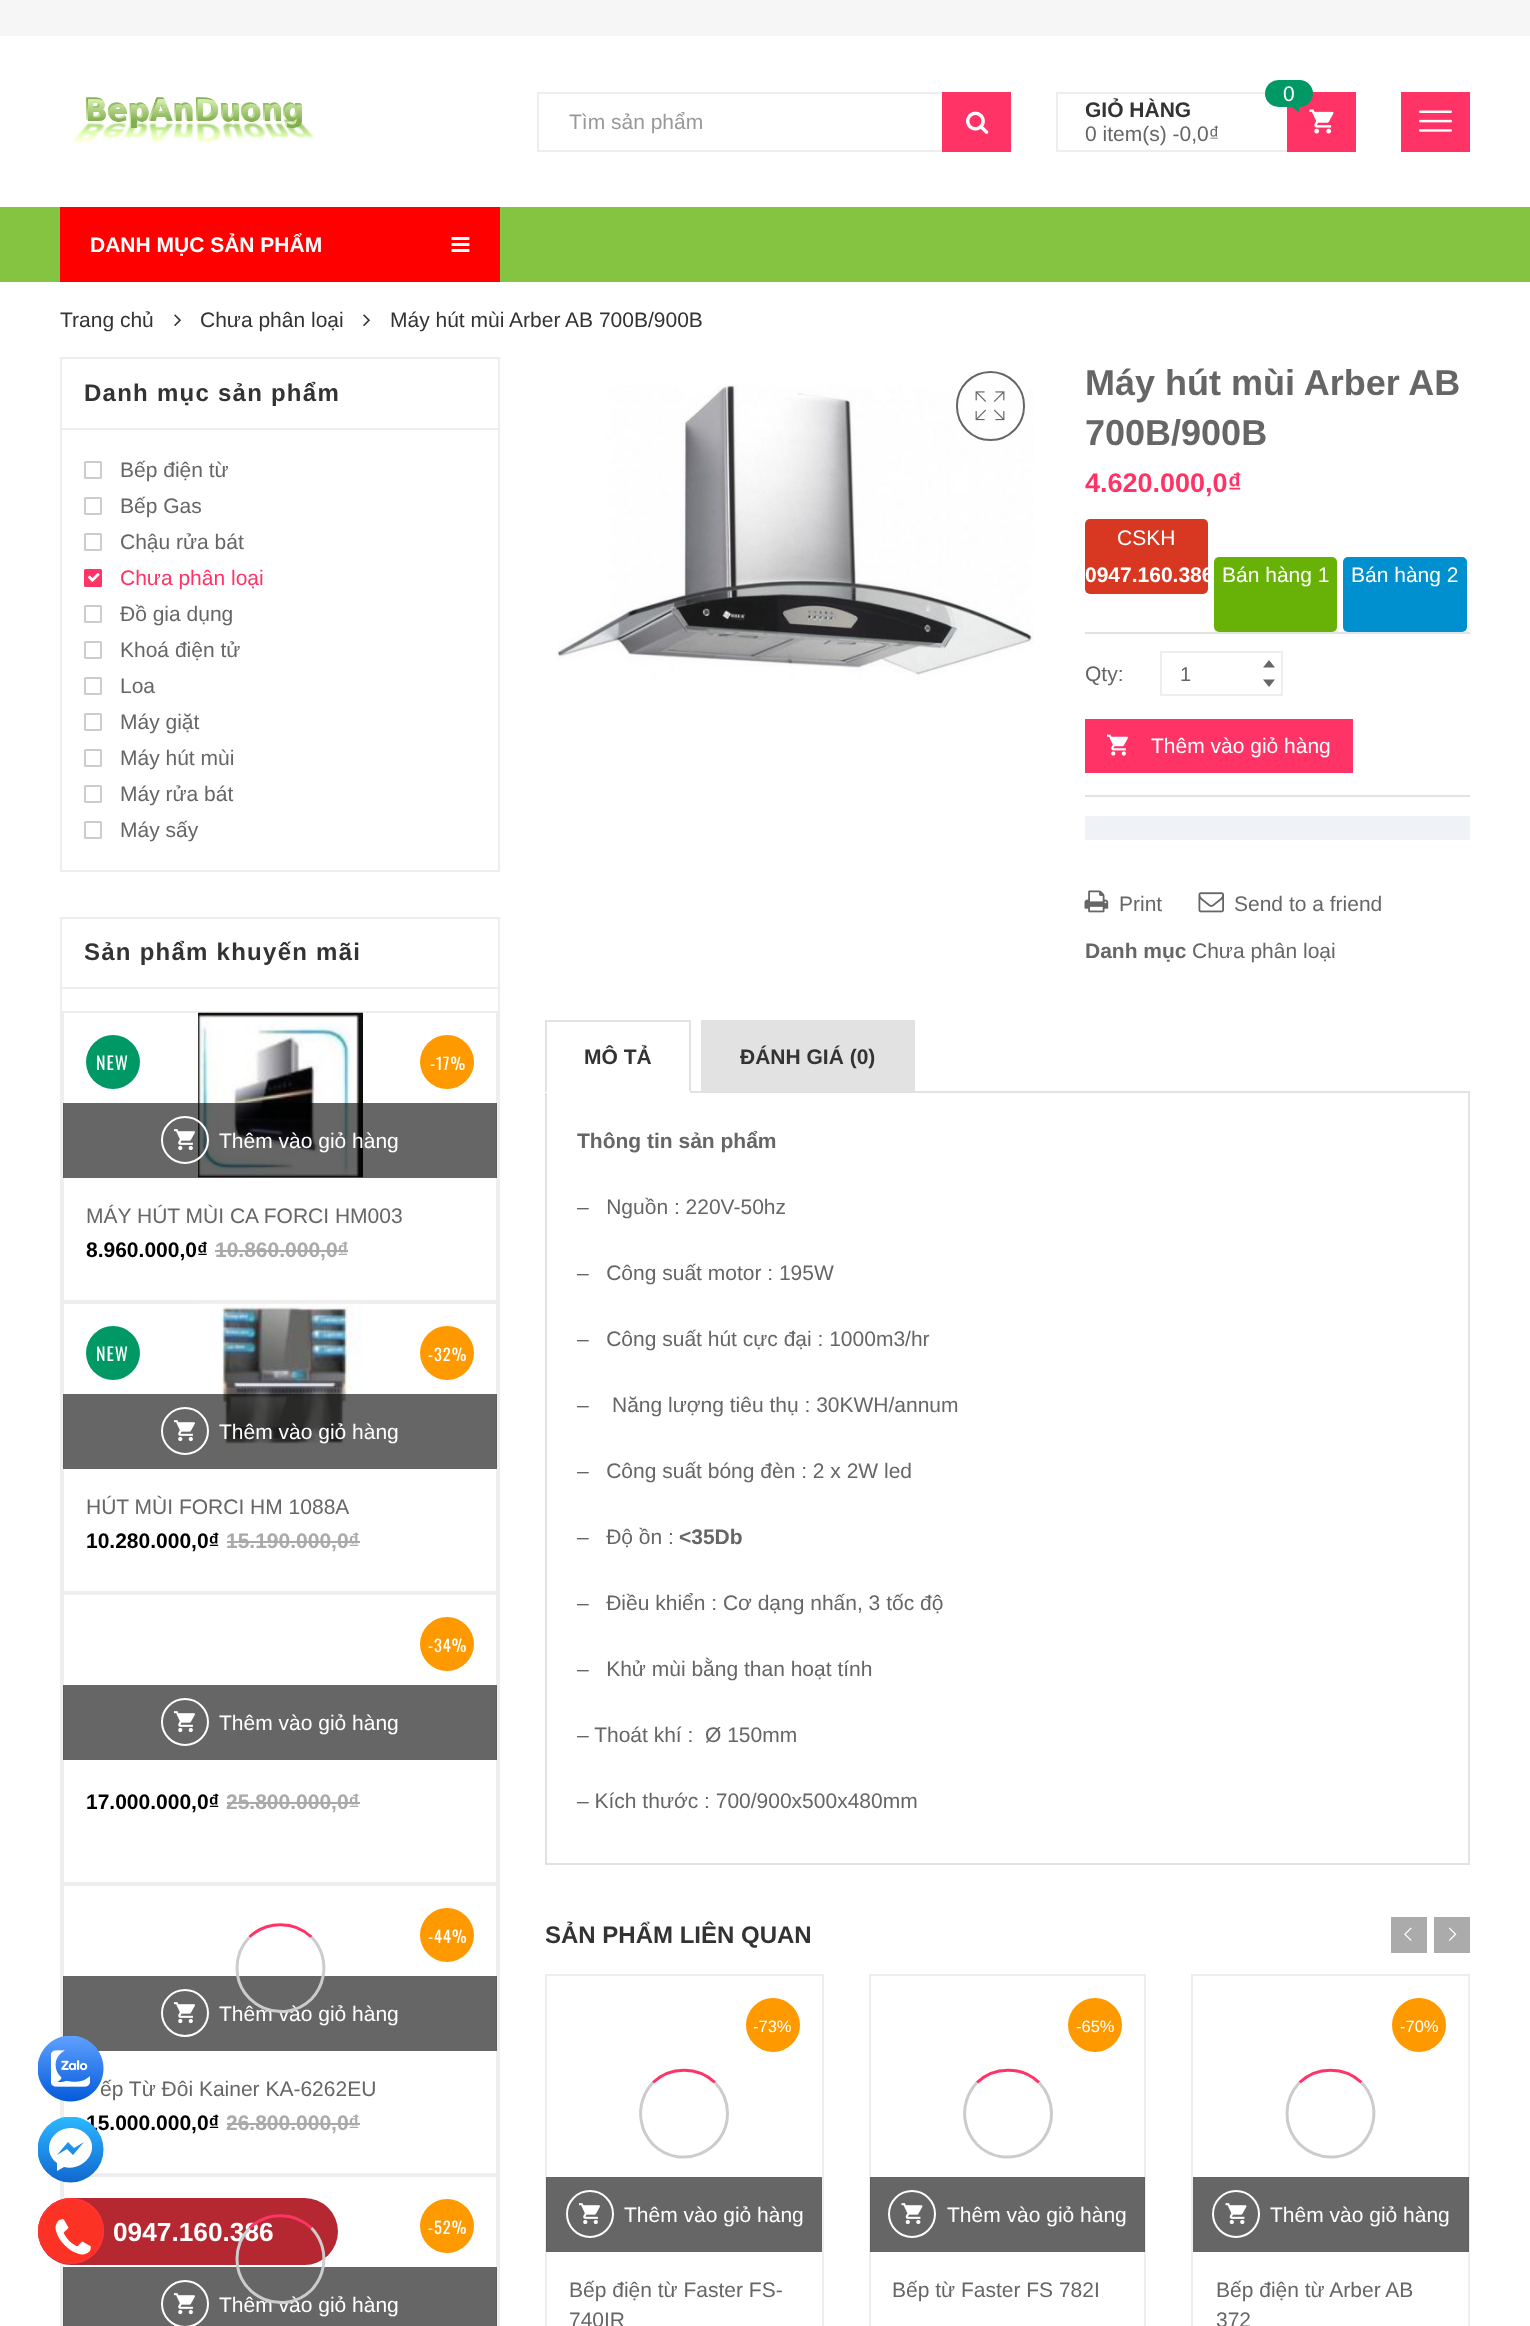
<svg xmlns="http://www.w3.org/2000/svg" width="1530" height="2326">
<defs>
<clipPath id="clip1"><rect x="38" y="2117" width="66" height="66"/></clipPath>
<linearGradient id="g1" gradientUnits="userSpaceOnUse" x1="70" y1="2182" x2="70" y2="2117"><stop offset="0" stop-color="#1168cf"/><stop offset="1" stop-color="#2cb7ff"/></linearGradient>
</defs>
<rect width="100%" height="100%" fill="#fff"/>
<rect width="1530" height="36" fill="#f6f6f6"/>
<image x="72" y="97" width="242" height="46" href="media/1.png"/>
<rect x="538" y="93" width="472" height="58" fill="none" stroke="#eee" stroke-width="2"/>
<text x="569" y="129" style="font-family:Liberation Sans;font-size:21px;fill:#999">Tìm sản phẩm</text>
<rect x="942" y="92" width="69" height="60" fill="#f36"/>
<image x="966" y="111" width="23" height="23" href="media/2.png"/>
<rect x="1057" y="93" width="298" height="58" fill="none" stroke="#eee" stroke-width="2"/>
<rect x="1287" y="92" width="69" height="60" fill="#f36"/>
<rect x="1265" y="80" width="48" height="27" rx="13.5" fill="#096"/>
<text x="1283" y="101" style="font-family:Liberation Sans;font-size:21px;fill:#fff">0</text>
<path d="M1291.5 106.5h7.5v6z" fill="#096"/>
<image x="1309" y="109" width="25" height="25" href="media/3.png"/>
<text x="1085" y="117" style="font-family:Liberation Sans;font-size:21px;font-weight:bold;fill:#333">GIỎ HÀNG</text>
<text x="1085" y="141" style="font-family:Liberation Sans;font-size:21px;fill:#666">0 item(s) -0,0₫</text>
<rect x="1401" y="92" width="69" height="60" fill="#f36"/>
<image x="1419" y="110" width="33" height="22" href="media/4.png"/>
<rect y="207" width="1530" height="75" fill="#85c441"/>
<rect x="60" y="207" width="440" height="75" fill="#f00"/>
<text x="90" y="252" style="font-family:Liberation Sans;font-size:21px;font-weight:bold;fill:#fff">DANH MỤC SẢN PHẨM</text>
<image x="451" y="237" width="19" height="15" href="media/5.png"/>
<text x="60" y="327" style="font-family:Liberation Sans;font-size:21px;fill:#333">Trang chủ</text>
<image x="174" y="314" width="7" height="12" href="media/6.png"/>
<text x="200" y="327" style="font-family:Liberation Sans;font-size:21px;fill:#333">Chưa phân loại</text>
<image x="363" y="314" width="7" height="12" href="media/6.png"/>
<text x="390" y="327" style="font-family:Liberation Sans;font-size:21px;fill:#333">Máy hút mùi Arber AB 700B/900B</text>
<rect x="61" y="358" width="438" height="513" fill="none" stroke="#eee" stroke-width="2"/>
<rect x="62" y="428" width="436" height="2" fill="#eee"/>
<text x="84" y="401" style="font-family:Liberation Sans;font-size:24px;font-weight:bold;letter-spacing:1.25px;fill:#333">Danh mục sản phẩm</text>
<rect x="85" y="462" width="16" height="16" rx="0.5" fill="none" stroke="#cdcdcd" stroke-width="2"/>
<text x="120" y="477" style="font-family:Liberation Sans;font-size:21px;fill:#666">Bếp điện từ</text>
<rect x="85" y="498" width="16" height="16" rx="0.5" fill="none" stroke="#cdcdcd" stroke-width="2"/>
<text x="120" y="513" style="font-family:Liberation Sans;font-size:21px;fill:#666">Bếp Gas</text>
<rect x="85" y="534" width="16" height="16" rx="0.5" fill="none" stroke="#cdcdcd" stroke-width="2"/>
<text x="120" y="549" style="font-family:Liberation Sans;font-size:21px;fill:#666">Chậu rửa bát</text>
<rect x="85" y="570" width="16" height="16" rx="0.5" fill="#f36" stroke="#f36" stroke-width="2"/>
<image x="88" y="573" width="12" height="9" href="media/7.png"/>
<text x="120" y="585" style="font-family:Liberation Sans;font-size:21px;fill:#f36">Chưa phân loại</text>
<rect x="85" y="606" width="16" height="16" rx="0.5" fill="none" stroke="#cdcdcd" stroke-width="2"/>
<text x="120" y="621" style="font-family:Liberation Sans;font-size:21px;fill:#666">Đồ gia dụng</text>
<rect x="85" y="642" width="16" height="16" rx="0.5" fill="none" stroke="#cdcdcd" stroke-width="2"/>
<text x="120" y="657" style="font-family:Liberation Sans;font-size:21px;fill:#666">Khoá điện tử</text>
<rect x="85" y="678" width="16" height="16" rx="0.5" fill="none" stroke="#cdcdcd" stroke-width="2"/>
<text x="120" y="693" style="font-family:Liberation Sans;font-size:21px;fill:#666">Loa</text>
<rect x="85" y="714" width="16" height="16" rx="0.5" fill="none" stroke="#cdcdcd" stroke-width="2"/>
<text x="120" y="729" style="font-family:Liberation Sans;font-size:21px;fill:#666">Máy giặt</text>
<rect x="85" y="750" width="16" height="16" rx="0.5" fill="none" stroke="#cdcdcd" stroke-width="2"/>
<text x="120" y="765" style="font-family:Liberation Sans;font-size:21px;fill:#666">Máy hút mùi</text>
<rect x="85" y="786" width="16" height="16" rx="0.5" fill="none" stroke="#cdcdcd" stroke-width="2"/>
<text x="120" y="801" style="font-family:Liberation Sans;font-size:21px;fill:#666">Máy rửa bát</text>
<rect x="85" y="822" width="16" height="16" rx="0.5" fill="none" stroke="#cdcdcd" stroke-width="2"/>
<text x="120" y="837" style="font-family:Liberation Sans;font-size:21px;fill:#666">Máy sấy</text>
<rect x="61" y="918" width="438" height="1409" fill="none" stroke="#eee" stroke-width="2"/>
<rect x="62" y="987" width="436" height="2" fill="#eee"/>
<text x="84" y="960" style="font-family:Liberation Sans;font-size:24px;font-weight:bold;letter-spacing:1.25px;fill:#333">Sản phẩm khuyến mãi</text>
<rect x="63" y="1012" width="434" height="289" fill="none" stroke="#eee" stroke-width="2"/>
<image x="198" y="1012" width="165" height="166" href="media/8.png"/>
<circle cx="113" cy="1062" r="27" fill="#096"/>
<text x="96" y="1070" style="font-family:Oswald;font-size:18px;letter-spacing:1px;fill:#fff">NEW</text>
<circle cx="447" cy="1062" r="27" fill="#f90"/>
<text x="430" y="1070" style="font-family:Oswald;font-size:16.5px;letter-spacing:1px;fill:#fff">-17%</text>
<rect x="63" y="1103" width="434" height="75" fill="#00000099"/>
<circle cx="185" cy="1140" r="23" fill="none" stroke="#fff" stroke-width="2"/>
<image x="174" y="1129" width="21" height="22" href="media/9.png"/>
<text x="219" y="1148" style="font-family:Liberation Sans;font-size:21px;fill:#fff">Thêm vào giỏ hàng</text>
<text x="86" y="1223" style="font-family:Liberation Sans;font-size:21px;fill:#666">MÁY HÚT MÙI CA FORCI HM003</text>
<text x="86" y="1257" style="font-family:Liberation Sans;font-size:21px;font-weight:bold;fill:#000">8.960.000,0₫</text>
<text x="215" y="1257" style="font-family:Liberation Sans;font-size:21px;font-weight:bold;fill:#aaa">10.860.000,0₫</text>
<rect x="215" y="1250" width="133" height="2" fill="#aaa"/>
<rect x="63" y="1303" width="434" height="289" fill="none" stroke="#eee" stroke-width="2"/>
<image x="198" y="1303" width="165" height="144" href="media/10.png"/>
<circle cx="113" cy="1353" r="27" fill="#096"/>
<text x="96" y="1361" style="font-family:Oswald;font-size:18px;letter-spacing:1px;fill:#fff">NEW</text>
<circle cx="447" cy="1353" r="27" fill="#f90"/>
<text x="428" y="1361" style="font-family:Oswald;font-size:16.5px;letter-spacing:1px;fill:#fff">-32%</text>
<rect x="63" y="1394" width="434" height="75" fill="#00000099"/>
<circle cx="185" cy="1431" r="23" fill="none" stroke="#fff" stroke-width="2"/>
<image x="174" y="1420" width="21" height="22" href="media/9.png"/>
<text x="219" y="1439" style="font-family:Liberation Sans;font-size:21px;fill:#fff">Thêm vào giỏ hàng</text>
<text x="86" y="1514" style="font-family:Liberation Sans;font-size:21px;fill:#666">HÚT MÙI FORCI HM 1088A</text>
<text x="86" y="1548" style="font-family:Liberation Sans;font-size:21px;font-weight:bold;fill:#000">10.280.000,0₫</text>
<text x="226" y="1548" style="font-family:Liberation Sans;font-size:21px;font-weight:bold;fill:#aaa">15.190.000,0₫</text>
<rect x="227" y="1541" width="133" height="2" fill="#aaa"/>
<rect x="63" y="1594" width="434" height="289" fill="none" stroke="#eee" stroke-width="2"/>
<circle cx="447" cy="1644" r="27" fill="#f90"/>
<text x="428" y="1652" style="font-family:Oswald;font-size:16.5px;letter-spacing:1px;fill:#fff">-34%</text>
<rect x="63" y="1685" width="434" height="75" fill="#00000099"/>
<circle cx="185" cy="1722" r="23" fill="none" stroke="#fff" stroke-width="2"/>
<image x="174" y="1711" width="21" height="22" href="media/9.png"/>
<text x="219" y="1730" style="font-family:Liberation Sans;font-size:21px;fill:#fff">Thêm vào giỏ hàng</text>
<text x="86" y="1809" style="font-family:Liberation Sans;font-size:21px;font-weight:bold;fill:#000">17.000.000,0₫</text>
<text x="226" y="1809" style="font-family:Liberation Sans;font-size:21px;font-weight:bold;fill:#aaa">25.800.000,0₫</text>
<rect x="227" y="1802" width="133" height="2" fill="#aaa"/>
<rect x="63" y="1885" width="434" height="289" fill="none" stroke="#eee" stroke-width="2"/>
<path d="M249.5 1937c17-16.5 45-16.5 62 0" fill="none" stroke="#f36" stroke-width="3"/>
<rect x="63" y="1976" width="434" height="75" fill="#00000099"/>
<text x="219" y="2021" style="font-family:Liberation Sans;font-size:21px;fill:#fff">Thêm vào giỏ hàng</text>
<path d="M311.5 1937c10 10.5 14.5 25.5 11.5 39.5c-1.5 8.5-5.5 16-11.5 22.5c-27.5 27-74.5 7.5-74.5-31c0-11.5 4.5-22.5 12.5-31" fill="none" stroke="#ccc" stroke-width="3"/>
<circle cx="447" cy="1935" r="27" fill="#f90"/>
<text x="428" y="1943" style="font-family:Oswald;font-size:16.5px;letter-spacing:1px;fill:#fff">-44%</text>
<circle cx="185" cy="2013" r="23" fill="none" stroke="#fff" stroke-width="2"/>
<image x="174" y="2002" width="21" height="22" href="media/9.png"/>
<text x="100" y="2096" style="font-family:Liberation Sans;font-size:21px;fill:#666">ếp Từ Đôi Kainer KA-6262EU</text>
<text x="86" y="2130" style="font-family:Liberation Sans;font-size:21px;font-weight:bold;fill:#000">15.000.000,0₫</text>
<text x="226" y="2130" style="font-family:Liberation Sans;font-size:21px;font-weight:bold;fill:#aaa">26.800.000,0₫</text>
<rect x="227" y="2123" width="133" height="2" fill="#aaa"/>
<rect x="63" y="2176" width="434" height="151" fill="none" stroke="#eee" stroke-width="2"/>
<rect x="38" y="2198" width="300" height="67" rx="33.5" fill="#b62831"/>
<text x="113" y="2241" style="font-family:Liberation Sans;font-size:26.25px;font-weight:bold;fill:#fff">0947.160.386</text>
<path d="M249.5 2228c17-16.5 45-16.5 62 0" fill="none" stroke="#f36" stroke-width="3"/>
<rect x="63" y="2267" width="434" height="59" fill="#00000099"/>
<text x="219" y="2312" style="font-family:Liberation Sans;font-size:21px;fill:#fff">Thêm vào giỏ hàng</text>
<path d="M311.5 2228c10 10.5 14.5 25.5 11.5 39.5c-1.5 8.5-5.5 16-11.5 22.5c-27.5 27-74.5 7.5-74.5-31c0-11.5 4.5-22.5 12.5-31" fill="none" stroke="#ccc" stroke-width="3"/>
<circle cx="447" cy="2226" r="27" fill="#f90"/>
<text x="428" y="2234" style="font-family:Oswald;font-size:16.5px;letter-spacing:1px;fill:#fff">-52%</text>
<circle cx="185" cy="2304" r="23" fill="none" stroke="#fff" stroke-width="2"/>
<image x="174" y="2293" width="21" height="22" href="media/9.png"/>
<image x="556" y="385" width="478" height="295" href="media/12.png"/>
<rect x="957" y="372" width="67" height="68" rx="33.5" fill="none" stroke="#666" stroke-width="2"/>
<image x="975" y="391" width="30" height="30" href="media/11.png"/>
<text x="1085" y="395" style="font-family:Liberation Sans;font-size:36px;font-weight:bold;fill:#666">Máy hút mùi Arber AB</text>
<text x="1085" y="445" style="font-family:Liberation Sans;font-size:36px;font-weight:bold;fill:#666">700B/900B</text>
<text x="1085" y="492" style="font-family:Liberation Sans;font-size:27px;font-weight:bold;fill:#f36">4.620.000,0₫</text>
<rect x="1085" y="519" width="123" height="75" rx="5" fill="#d83721"/>
<text x="1117" y="545" style="font-family:Liberation Sans;font-size:21px;fill:#fff">CSKH</text>
<text x="1085" y="582" style="font-family:Liberation Sans;font-size:21px;font-weight:bold;fill:#fff">0947.160.386</text>
<rect x="1214" y="557" width="123" height="75" rx="5" fill="#68b207"/>
<text x="1222" y="582" style="font-family:Liberation Sans;font-size:21px;fill:#fff">Bán hàng 1</text>
<rect x="1343" y="557" width="124" height="75" rx="5" fill="#0090d0"/>
<text x="1351" y="582" style="font-family:Liberation Sans;font-size:21px;fill:#fff">Bán hàng 2</text>
<rect x="1085" y="632" width="385" height="2" fill="#e2e2e2"/>
<rect x="1085" y="795" width="385" height="2" fill="#e2e2e2"/>
<text x="1085" y="681" style="font-family:Liberation Sans;font-size:21px;fill:#666">Qty:</text>
<rect x="1161" y="652" width="121" height="43" fill="none" stroke="#eee" stroke-width="2"/>
<text x="1180" y="681" style="font-family:Liberation Sans;font-size:20px;fill:#666">1</text>
<path d="M1263 679.5h12l-6 7.5zm12-12h-12l6-7.5z" fill="#666"/>
<rect x="1085" y="719" width="268" height="54" fill="#f36"/>
<image x="1107" y="734" width="21" height="22" href="media/13.png"/>
<text x="1151" y="753" style="font-family:Liberation Sans;font-size:21px;fill:#fff">Thêm vào giỏ hàng</text>
<rect x="1085" y="816" width="385" height="24" fill="#eff2f6"/>
<image x="1084" y="890" width="25" height="23" href="media/14.png"/>
<text x="1119" y="911" style="font-family:Liberation Sans;font-size:21px;fill:#666">Print</text>
<image x="1198" y="892" width="26" height="21" href="media/15.png"/>
<text x="1234" y="911" style="font-family:Liberation Sans;font-size:21px;fill:#666">Send to a friend</text>
<text x="1085" y="958" style="font-family:Liberation Sans;font-size:21px;font-weight:bold;fill:#666">Danh mục</text>
<text x="1192" y="958" style="font-family:Liberation Sans;font-size:21px;fill:#666">Chưa phân loại</text>
<rect x="545" y="1020" width="145" height="2" fill="#e2e2e2"/>
<rect x="546" y="1092" width="923" height="772" fill="none" stroke="#e2e2e2" stroke-width="2"/>
<rect x="689" y="1020" width="2" height="72" fill="#e2e2e2"/>
<rect x="545" y="1091" width="145" height="2" fill="#fff"/>
<rect x="545" y="1020" width="2" height="72" fill="#e2e2e2"/>
<text x="584" y="1064" style="font-family:Liberation Sans;font-size:21px;font-weight:bold;fill:#333">MÔ TẢ</text>
<rect x="701" y="1020" width="214" height="71" fill="#e2e2e2"/>
<text x="740" y="1064" style="font-family:Liberation Sans;font-size:21px;font-weight:bold;fill:#333">ĐÁNH GIÁ (0)</text>
<text x="577" y="1148" style="font-family:Liberation Sans;font-size:21px;font-weight:bold;fill:#666">Thông tin sản phẩm</text>
<text x="577" y="1214" style="font-family:Liberation Sans;font-size:21px;fill:#666" xml:space="preserve">–   Nguồn : 220V-50hz</text>
<text x="577" y="1280" style="font-family:Liberation Sans;font-size:21px;fill:#666" xml:space="preserve">–   Công suất motor : 195W</text>
<text x="577" y="1346" style="font-family:Liberation Sans;font-size:21px;fill:#666" xml:space="preserve">–   Công suất hút cực đại : 1000m3/hr</text>
<text x="577" y="1412" style="font-family:Liberation Sans;font-size:21px;fill:#666" xml:space="preserve">–    Năng lượng tiêu thụ : 30KWH/annum</text>
<text x="577" y="1478" style="font-family:Liberation Sans;font-size:21px;fill:#666" xml:space="preserve">–   Công suất bóng đèn : 2 x 2W led</text>
<text x="577" y="1544" style="font-family:Liberation Sans;font-size:21px;fill:#666" xml:space="preserve">–   Độ ồn :</text>
<text x="679" y="1544" style="font-family:Liberation Sans;font-size:21px;font-weight:bold;fill:#666">&lt;35Db</text>
<text x="577" y="1610" style="font-family:Liberation Sans;font-size:21px;fill:#666" xml:space="preserve">–   Điều khiển : Cơ dạng nhấn, 3 tốc độ</text>
<text x="577" y="1676" style="font-family:Liberation Sans;font-size:21px;fill:#666" xml:space="preserve">–   Khử mùi bằng than hoạt tính</text>
<text x="577" y="1742" style="font-family:Liberation Sans;font-size:21px;fill:#666" xml:space="preserve">– Thoát khí :  Ø 150mm</text>
<text x="577" y="1808" style="font-family:Liberation Sans;font-size:21px;fill:#666">– Kích thước : 700/900x500x480mm</text>
<text x="545" y="1943" style="font-family:Liberation Sans;font-size:24px;font-weight:bold;fill:#333">SẢN PHẨM LIÊN QUAN</text>
<rect x="1391" y="1917" width="36" height="36" fill="#ababab"/>
<image x="1404" y="1927" width="8" height="14" href="media/16.png"/>
<rect x="1434" y="1917" width="36" height="36" fill="#ababab"/>
<image x="1448" y="1927" width="9" height="14" href="media/17.png"/>
<rect x="546" y="1975" width="277" height="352" fill="none" stroke="#eee" stroke-width="2"/>
<circle cx="773" cy="2025" r="27" fill="#f90"/>
<text x="753" y="2032" style="font-family:Liberation Sans;font-size:16.5px;fill:#fff">-73%</text>
<path d="M653 2082.5c17-16.5 45-16.5 62 0" fill="none" stroke="#f36" stroke-width="3"/>
<path d="M715 2082.5c8 8.5 12.5 19.5 12.5 31c0 38.5-47 58-74.5 31c-6-6.5-10-14-11.5-22.5c-3-14 1.5-29 11.5-39.5" fill="none" stroke="#ccc" stroke-width="3"/>
<rect x="546" y="2177" width="276" height="75" fill="#00000099"/>
<circle cx="590" cy="2214" r="23" fill="none" stroke="#fff" stroke-width="2"/>
<image x="579" y="2203" width="21" height="22" href="media/9.png"/>
<text x="624" y="2222" style="font-family:Liberation Sans;font-size:21px;fill:#fff">Thêm vào giỏ hàng</text>
<text x="569" y="2297" style="font-family:Liberation Sans;font-size:21px;fill:#666">Bếp điện từ Faster FS-</text>
<text x="569" y="2327" style="font-family:Liberation Sans;font-size:21px;fill:#666">740IR</text>
<rect x="870" y="1975" width="275" height="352" fill="none" stroke="#eee" stroke-width="2"/>
<circle cx="1095" cy="2025" r="27" fill="#f90"/>
<text x="1076" y="2032" style="font-family:Liberation Sans;font-size:16.5px;fill:#fff">-65%</text>
<path d="M977 2082.5c17-16.5 45-16.5 62 0" fill="none" stroke="#f36" stroke-width="3"/>
<path d="M1039 2082.5c8 8.5 12.5 19.5 12.5 31c0 38.5-47 58-74.5 31c-6-6.5-10-14-11.5-22.5c-3-14 1.5-29 11.5-39.5" fill="none" stroke="#ccc" stroke-width="3"/>
<rect x="870" y="2177" width="275" height="75" fill="#00000099"/>
<circle cx="912" cy="2214" r="23" fill="none" stroke="#fff" stroke-width="2"/>
<image x="901" y="2203" width="22" height="22" href="media/18.png"/>
<text x="947" y="2222" style="font-family:Liberation Sans;font-size:21px;fill:#fff">Thêm vào giỏ hàng</text>
<text x="892" y="2297" style="font-family:Liberation Sans;font-size:21px;fill:#666">Bếp từ Faster FS 782I</text>
<rect x="1192" y="1975" width="277" height="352" fill="none" stroke="#eee" stroke-width="2"/>
<circle cx="1419" cy="2025" r="27" fill="#f90"/>
<text x="1400" y="2032" style="font-family:Liberation Sans;font-size:16.5px;fill:#fff">-70%</text>
<path d="M1299.5 2082.5c17-16.5 45-16.5 62 0" fill="none" stroke="#f36" stroke-width="3"/>
<path d="M1361.5 2082.5c10 10.5 14.5 25.5 11.5 39.5c-1.5 8.5-5.5 16-11.5 22.5c-27.5 27-74.5 7.5-74.5-31c0-11.5 4.5-22.5 12.5-31" fill="none" stroke="#ccc" stroke-width="3"/>
<rect x="1193" y="2177" width="276" height="75" fill="#00000099"/>
<circle cx="1236" cy="2214" r="23" fill="none" stroke="#fff" stroke-width="2"/>
<image x="1225" y="2203" width="22" height="22" href="media/18.png"/>
<text x="1270" y="2222" style="font-family:Liberation Sans;font-size:21px;fill:#fff">Thêm vào giỏ hàng</text>
<text x="1216" y="2297" style="font-family:Liberation Sans;font-size:21px;fill:#666">Bếp điện từ Arber AB</text>
<text x="1216" y="2327" style="font-family:Liberation Sans;font-size:21px;fill:#666">372</text>
<image x="38" y="2036" width="66" height="66" href="media/19.png"/>
<g clip-path="url(#clip1)">
<circle cx="70.5" cy="2149.5" r="33" fill="url(#g1)"/>
</g>
<path d="M71 2128c-20 0-30 23-14 35v8l7-4c20 5 38-18 22-33c-4-4-10-6-15-6zm2 27l-6-6l-10 6l11-13l6 6l10-6z" fill="#fff" fill-rule="evenodd"/>
<circle cx="71" cy="2231" r="33" fill="#ff3425"/>
<circle cx="71" cy="2231" r="32" fill="#ee2e2433" stroke="#f33" stroke-width="2"/>
<image x="55" y="2219" width="36" height="36" href="media/20.png"/>
</svg>
